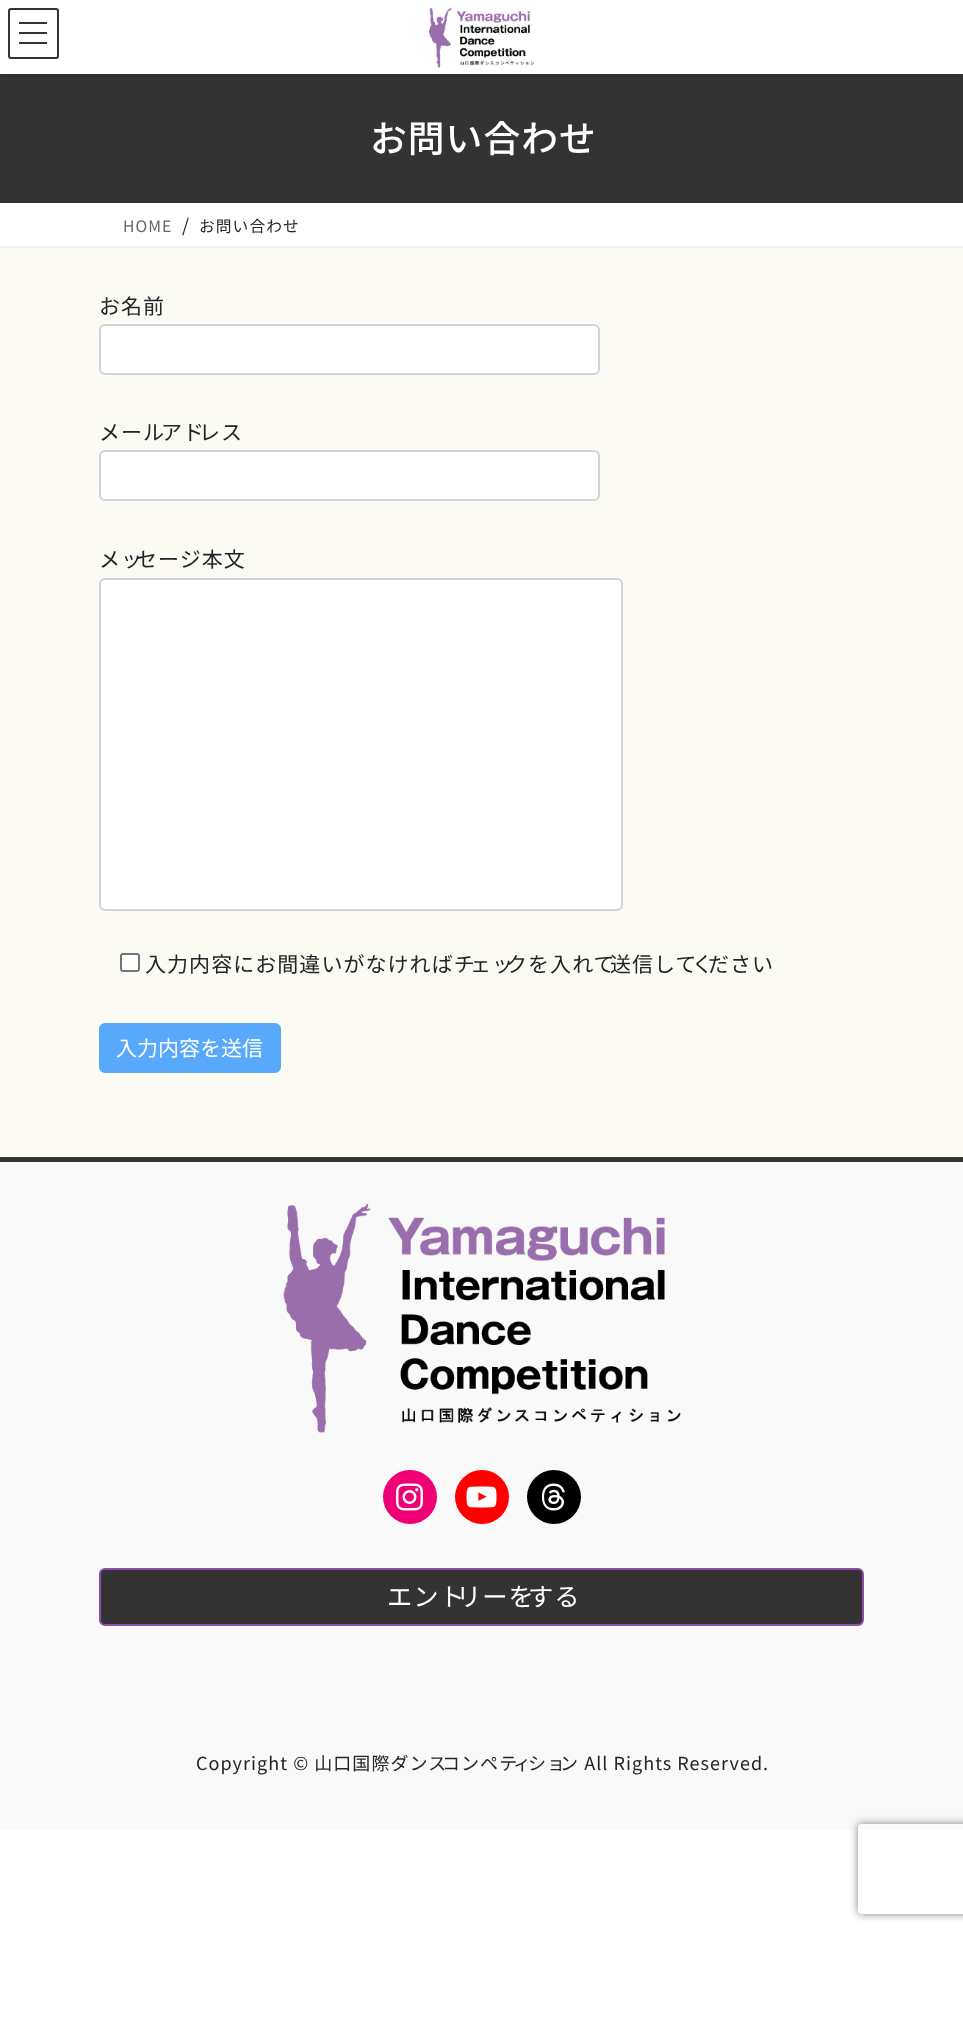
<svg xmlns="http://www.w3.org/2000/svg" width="963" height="2041">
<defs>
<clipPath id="clip1"><path d="M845 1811h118v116h-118zm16 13h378c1.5 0 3 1.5 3 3v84c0 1.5-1.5 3-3 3h-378c-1.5 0-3-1.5-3-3v-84c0-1.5 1.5-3 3-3z" clip-rule="evenodd"/></clipPath>
</defs>
<rect width="100%" height="100%" fill="#fff"/>
<rect y="74" width="963" height="129" fill="#333"/>
<rect y="2" width="963" height="73" fill="#0000001a" filter="blur(2px)"/>
<rect width="963" height="74" fill="#fff"/>
<image x="429" y="7" width="105" height="61" href="media/1.png"/>
<rect x="19" y="22" width="28" height="2" fill="#333"/>
<rect x="19" y="32" width="28" height="2" fill="#333"/>
<rect x="19" y="42" width="28" height="2" fill="#333"/>
<rect x="9" y="9" width="49" height="49" rx="2" fill="none" stroke="#333" stroke-width="2"/>
<text x="370" y="152" style="font-family:Noto Sans JP;font-size:36.75px;font-weight:500;letter-spacing:1.05px;fill:#fff">お問い合わせ</text>
<rect y="246" width="963" height="2" fill="#f2f2f2"/>
<text x="123" y="232" style="font-family:Noto Sans JP;font-size:15.75px;letter-spacing:1.05px;fill:#666">HOME</text>
<text x="182" y="232" style="font-family:Noto Sans JP;font-size:18px;letter-spacing:1.05px;fill:#212529">/</text>
<text x="199" y="232" style="font-family:Noto Sans JP;font-size:15.75px;letter-spacing:1.05px;fill:#212529">お問い合わせ</text>
<rect y="248" width="963" height="909" fill="#fbfbf3"/>
<text x="99" y="314" style="font-family:Noto Sans JP;font-size:21px;letter-spacing:1.05px;fill:#212529">お名前</text>
<rect x="100" y="325" width="499" height="49" rx="5" fill="#fff" stroke="#ced4da" stroke-width="2"/>
<text x="99" y="440" style="font-family:Noto Sans JP;font-size:21px;letter-spacing:1.05px;fill:#212529">メール</text>
<text x="161" y="440" style="font-family:Noto Sans JP;font-size:21px;letter-spacing:1.05px;fill:#212529">アド</text>
<text x="199" y="440" style="font-family:Noto Sans JP;font-size:21px;letter-spacing:1.05px;fill:#212529">レス</text>
<rect x="100" y="451" width="499" height="49" rx="5" fill="#fff" stroke="#ced4da" stroke-width="2"/>
<text x="99" y="567" style="font-family:Noto Sans JP;font-size:21px;letter-spacing:1.05px;fill:#212529">メッ</text>
<text x="136" y="567" style="font-family:Noto Sans JP;font-size:21px;letter-spacing:1.05px;fill:#212529">セージ本文</text>
<rect x="100" y="579" width="522" height="331" rx="5" fill="#fff" stroke="#ced4da" stroke-width="2"/>
<rect x="121" y="954" width="18" height="17" rx="2" fill="#fff" stroke="#767676" stroke-width="2"/>
<text x="145" y="972" style="font-family:Noto Sans JP;font-size:21px;letter-spacing:1.05px;fill:#212529">入力内容にお間違いがなければチ</text>
<text x="470" y="972" style="font-family:Noto Sans JP;font-size:21px;letter-spacing:1.05px;fill:#212529">ェッ</text>
<text x="506" y="972" style="font-family:Noto Sans JP;font-size:21px;letter-spacing:1.05px;fill:#212529">クを入れて</text>
<text x="610" y="972" style="font-family:Noto Sans JP;font-size:21px;letter-spacing:1.05px;fill:#212529">送信して</text>
<text x="692" y="972" style="font-family:Noto Sans JP;font-size:21px;letter-spacing:1.05px;fill:#212529">く</text>
<text x="708" y="972" style="font-family:Noto Sans JP;font-size:21px;letter-spacing:1.05px;fill:#212529">ださい</text>
<rect x="100" y="1024" width="180" height="48" rx="5" fill="#58a8fb" stroke="#58a8fb" stroke-width="2"/>
<text x="116" y="1056" style="font-family:Noto Sans JP;font-size:21px;fill:#fff">入力内容を送信</text>
<rect y="1162" width="963" height="667" fill="#f9f9f9"/>
<rect y="1157" width="963" height="5" fill="#333"/>
<image x="283" y="1203" width="398" height="230" href="media/2.png"/>
<circle cx="410" cy="1497" r="27" fill="#f00075"/>
<image x="396" y="1483" width="27" height="28" href="media/3.png"/>
<circle cx="482" cy="1497" r="27" fill="#f00"/>
<image x="466" y="1486" width="31" height="22" href="media/4.png"/>
<circle cx="554" cy="1497" r="27" fill="#000"/>
<image x="541" y="1483" width="24" height="28" href="media/5.png"/>
<rect x="100" y="1569" width="763" height="56" rx="5" fill="#333" stroke="#8e4cad" stroke-width="2"/>
<text x="387" y="1606" style="font-family:Noto Sans JP;font-size:25.25px;letter-spacing:1.05px;fill:#fff">エント</text>
<text x="456" y="1606" style="font-family:Noto Sans JP;font-size:25.25px;letter-spacing:1.05px;fill:#fff">リーを</text>
<text x="528" y="1606" style="font-family:Noto Sans JP;font-size:25.25px;letter-spacing:1.05px;fill:#fff">する</text>
<text x="196" y="1770" style="font-family:Noto Sans JP;font-size:18px;letter-spacing:1.05px;fill:#212529">Copyright © 山口国際ダンス</text>
<text x="442" y="1770" style="font-family:Noto Sans JP;font-size:18px;letter-spacing:1.05px;fill:#212529">コンペテ</text>
<text x="513" y="1770" style="font-family:Noto Sans JP;font-size:18px;letter-spacing:1.05px;fill:#212529">ィ</text>
<text x="528" y="1770" style="font-family:Noto Sans JP;font-size:18px;letter-spacing:1.05px;fill:#212529">ショ</text>
<text x="560" y="1770" style="font-family:Noto Sans JP;font-size:18px;letter-spacing:1.05px;fill:#212529">ン All Rights Reserved.</text>
<g clip-path="url(#clip1)">
<rect x="858" y="1824" width="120" height="90" rx="3" fill="#808080" filter="blur(4px)"/>
</g>
</svg>
